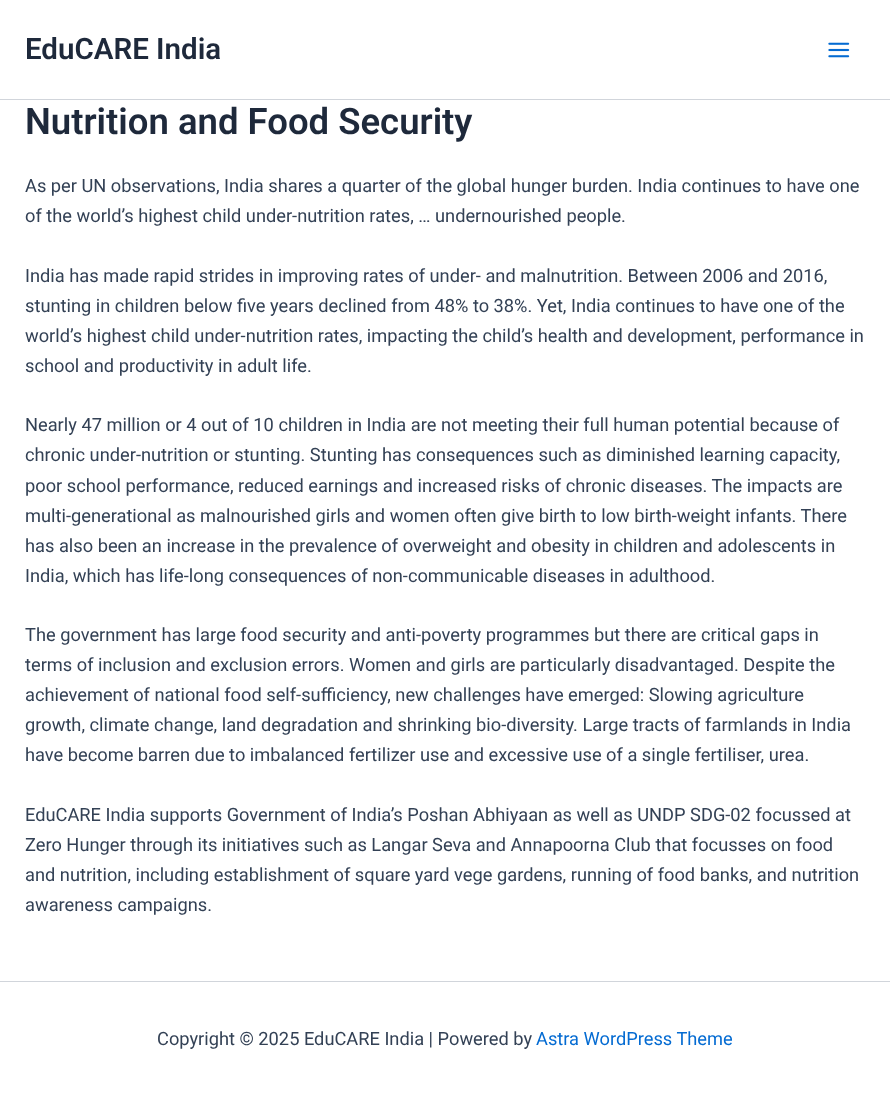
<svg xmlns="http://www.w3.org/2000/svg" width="890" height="1107">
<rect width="100%" height="100%" fill="#fff"/>
<rect y="99" width="890" height="1" fill="#d1d5db"/>
<text x="25" y="59" style="font-family:Roboto;font-size:29.5px;font-weight:600;fill:#1e293b">EduCARE India</text>
<image x="828" y="42" width="22" height="16" href="media/1.png"/>
<text x="25" y="134" style="font-family:Roboto;font-size:36.5px;font-weight:600;fill:#1e293b">Nutrition and Food Security</text>
<text x="25" y="192" style="font-family:Roboto;font-size:18.25px;fill:#334155">As per UN observations, India shares a quarter of the global hunger burden. India continues to have one</text>
<text x="25" y="222" style="font-family:Roboto;font-size:18.25px;fill:#334155">of the world’s highest child under-nutrition rates, … undernourished people.</text>
<text x="25" y="282" style="font-family:Roboto;font-size:18.25px;fill:#334155">India has made rapid strides in improving rates of under- and malnutrition. Between 2006 and 2016,</text>
<text x="25" y="312" style="font-family:Roboto;font-size:18.25px;fill:#334155">stunting in children below five years declined from 48% to 38%. Yet, India continues to have one of the</text>
<text x="25" y="342" style="font-family:Roboto;font-size:18.25px;fill:#334155">world’s highest child under-nutrition rates, impacting the child’s health and development, performance in</text>
<text x="25" y="372" style="font-family:Roboto;font-size:18.25px;fill:#334155">school and productivity in adult life.</text>
<text x="25" y="431" style="font-family:Roboto;font-size:18.25px;fill:#334155">Nearly 47 million or 4 out of 10 children in India are not meeting their full human potential because of</text>
<text x="25" y="461" style="font-family:Roboto;font-size:18.25px;fill:#334155">chronic under-nutrition or stunting. Stunting has consequences such as diminished learning capacity,</text>
<text x="25" y="492" style="font-family:Roboto;font-size:18.25px;fill:#334155">poor school performance, reduced earnings and increased risks of chronic diseases. The impacts are</text>
<text x="25" y="522" style="font-family:Roboto;font-size:18.25px;fill:#334155">multi-generational as malnourished girls and women often give birth to low birth-weight infants. There</text>
<text x="25" y="552" style="font-family:Roboto;font-size:18.25px;fill:#334155">has also been an increase in the prevalence of overweight and obesity in children and adolescents in</text>
<text x="25" y="582" style="font-family:Roboto;font-size:18.25px;fill:#334155">India, which has life-long consequences of non-communicable diseases in adulthood.</text>
<text x="25" y="641" style="font-family:Roboto;font-size:18.25px;fill:#334155">The government has large food security and anti-poverty programmes but there are critical gaps in</text>
<text x="25" y="671" style="font-family:Roboto;font-size:18.25px;fill:#334155">terms of inclusion and exclusion errors. Women and girls are particularly disadvantaged. Despite the</text>
<text x="25" y="701" style="font-family:Roboto;font-size:18.25px;fill:#334155">achievement of national food self-sufficiency, new challenges have emerged: Slowing agriculture</text>
<text x="25" y="731" style="font-family:Roboto;font-size:18.25px;fill:#334155">growth, climate change, land degradation and shrinking bio-diversity. Large tracts of farmlands in India</text>
<text x="25" y="761" style="font-family:Roboto;font-size:18.25px;fill:#334155">have become barren due to imbalanced fertilizer use and excessive use of a single fertiliser, urea.</text>
<text x="25" y="821" style="font-family:Roboto;font-size:18.25px;fill:#334155">EduCARE India supports Government of India’s Poshan Abhiyaan as well as UNDP SDG-02 focussed at</text>
<text x="25" y="851" style="font-family:Roboto;font-size:18.25px;fill:#334155">Zero Hunger through its initiatives such as Langar Seva and Annapoorna Club that focusses on food</text>
<text x="25" y="881" style="font-family:Roboto;font-size:18.25px;fill:#334155">and nutrition, including establishment of square yard vege gardens, running of food banks, and nutrition</text>
<text x="25" y="911" style="font-family:Roboto;font-size:18.25px;fill:#334155">awareness campaigns.</text>
<rect y="981" width="890" height="1" fill="#d1d5db"/>
<text x="157" y="1045" style="font-family:Roboto;font-size:18.25px;fill:#334155">Copyright © 2025 EduCARE India | Powered by</text>
<text x="536" y="1045" style="font-family:Roboto;font-size:18.25px;fill:#046bd2">Astra WordPress Theme</text>
</svg>
